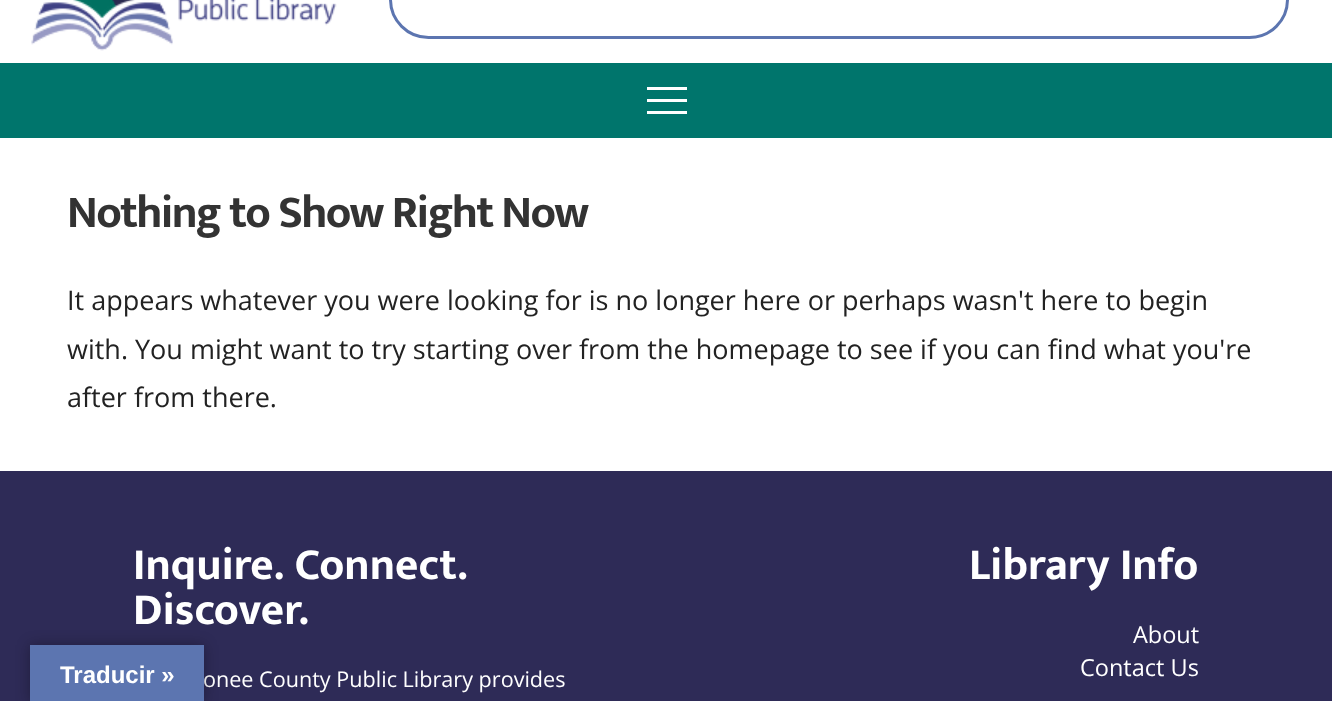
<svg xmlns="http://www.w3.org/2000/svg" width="1332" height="701">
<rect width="100%" height="100%" fill="#fff"/>
<image x="31" y="0" width="306" height="51" href="media/1.png"/>
<rect x="390.5" y="-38.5" width="897" height="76" rx="38" fill="none" stroke="#5c75b0" stroke-width="3"/>
<rect y="63" width="1332" height="75" fill="#00756c"/>
<rect x="647" y="87" width="40" height="3" fill="#fff"/>
<rect x="647" y="99" width="40" height="3" fill="#fff"/>
<rect x="647" y="111" width="40" height="3" fill="#fff"/>
<text x="67" y="227" style="font-family:Mukta Mahee;font-size:45.9px;font-weight:bold;letter-spacing:-1.6px;fill:#333">Nothing to Show Right Now</text>
<text x="67" y="310" style="font-family:Open Sans;font-size:27px;fill:#222">It appears whatever you were looking for is no longer here or perhaps wasn't here to begin</text>
<text x="67" y="359" style="font-family:Open Sans;font-size:27px;fill:#222">with. You might want to try starting over from the homepage to see if you can find what you're</text>
<text x="67" y="407" style="font-family:Open Sans;font-size:27px;fill:#222">after from there.</text>
<rect y="471" width="1332" height="230" fill="#2e2b57"/>
<text x="133" y="579" style="font-family:Mukta Mahee;font-size:45px;font-weight:bold;fill:#fff">Inquire. Connect.</text>
<text x="133" y="624" style="font-family:Mukta Mahee;font-size:45px;font-weight:bold;fill:#fff">Discover.</text>
<text x="203" y="687" style="font-family:Open Sans;font-size:21.6px;fill:#fff">onee County Public Library provides</text>
<text x="969" y="579" style="font-family:Mukta Mahee;font-size:45px;font-weight:bold;fill:#fff">Library Info</text>
<text x="1133" y="643" style="font-family:Open Sans;font-size:23.5px;fill:#fff">About</text>
<text x="1080" y="676" style="font-family:Open Sans;font-size:23.5px;fill:#fff">Contact Us</text>
<rect x="30" y="645" width="174" height="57" fill="#0000004d" filter="blur(7px)"/>
<rect x="30" y="645" width="174" height="56" fill="#5c75b0"/>
<text x="60" y="683" style="font-family:Liberation Sans;font-size:24px;font-weight:bold;fill:#fff">Traducir »</text>
</svg>
